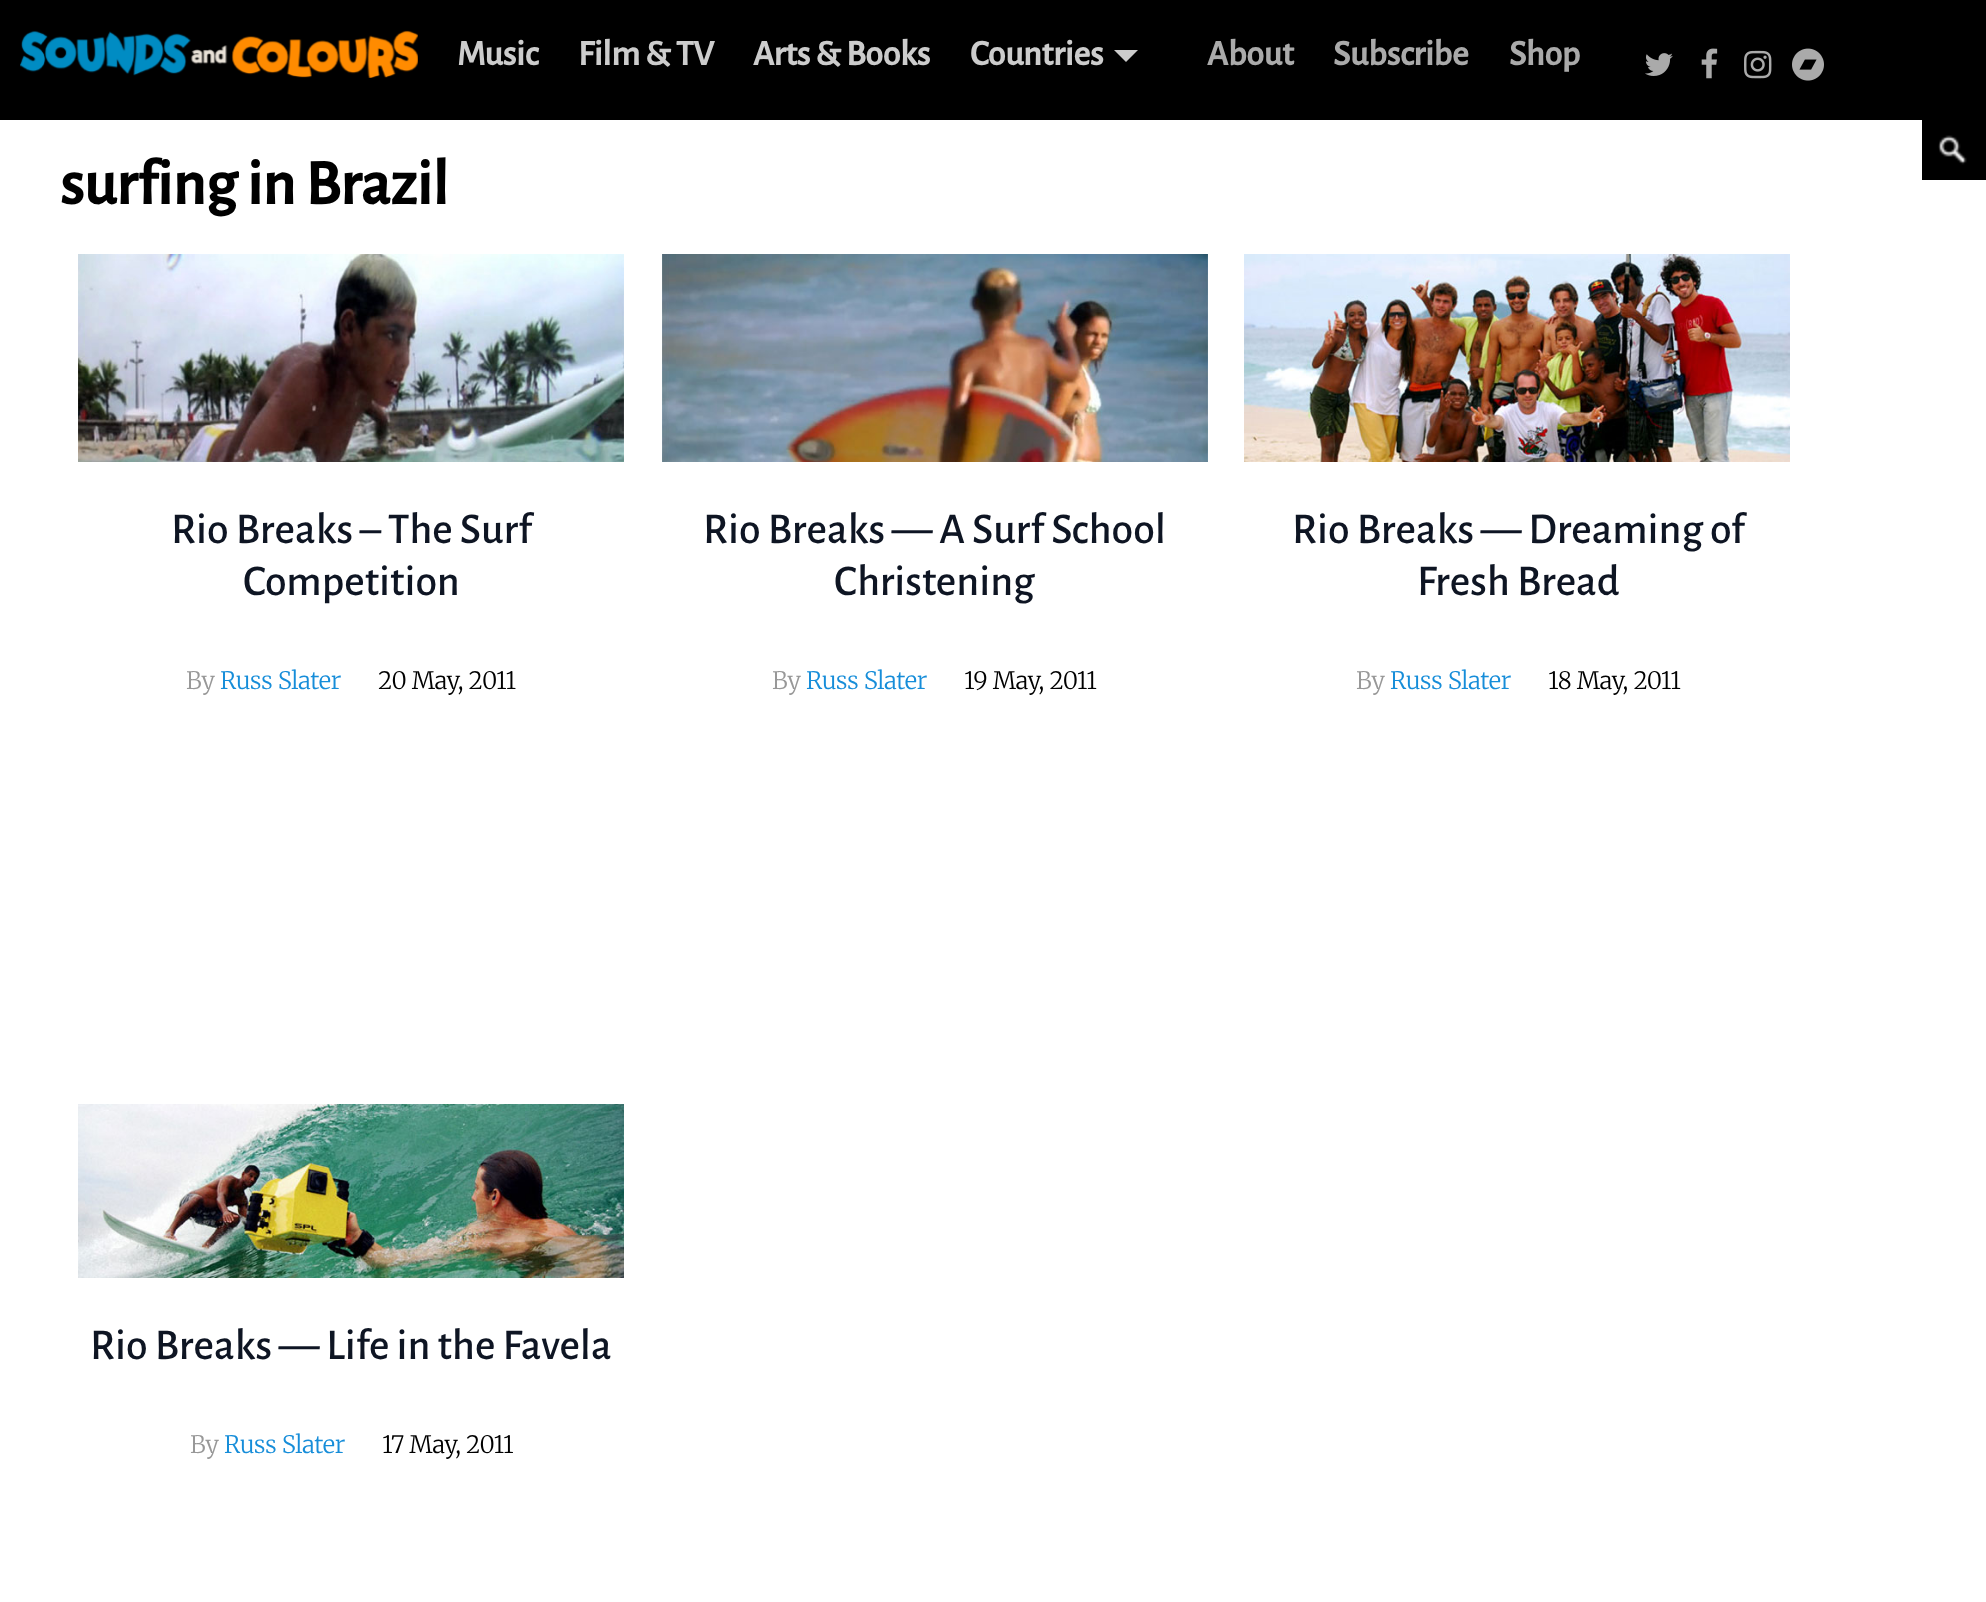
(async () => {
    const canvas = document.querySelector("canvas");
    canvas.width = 1986;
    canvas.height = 1602;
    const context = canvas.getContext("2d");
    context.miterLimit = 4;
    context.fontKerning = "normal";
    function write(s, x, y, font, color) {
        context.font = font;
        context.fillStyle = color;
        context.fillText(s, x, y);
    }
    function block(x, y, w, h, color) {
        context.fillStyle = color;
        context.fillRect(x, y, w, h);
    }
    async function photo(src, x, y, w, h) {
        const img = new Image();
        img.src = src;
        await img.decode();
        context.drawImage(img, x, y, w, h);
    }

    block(0, 0, 1986, 1602, "rgb(255, 255, 255)");
    block(0, 0, 1986, 120, "rgb(0, 0, 0)");
    await photo("media/1.png", 20, 30, 398, 48);
    context.letterSpacing = "-0.3px";
    write("Music", 457, 65, "bold 36px Alegreya Sans", "rgb(204, 204, 204)");
    write("Film & TV", 578, 65, "bold 36px Alegreya Sans", "rgb(204, 204, 204)");
    write("Arts & Books", 753, 65, "bold 36px Alegreya Sans", "rgb(204, 204, 204)");
    write("Countries", 970, 65, "bold 36px Alegreya Sans", "rgb(204, 204, 204)");
    context.beginPath();
    context.moveTo(1114, 50);
    context.lineTo(1138, 50);
    context.lineTo(1126, 62);
    context.closePath();
    context.fill();
    write("About", 1207, 65, "bold 36px Alegreya Sans", "rgb(170, 170, 170)");
    write("Subscribe", 1333, 65, "bold 36px Alegreya Sans", "rgb(170, 170, 170)");
    write("Shop", 1509, 65, "bold 36px Alegreya Sans", "rgb(170, 170, 170)");
    await photo("media/2.png", 1645, 53, 28, 23);
    await photo("media/3.png", 1701, 48, 17, 31);
    await photo("media/4.png", 1744, 50, 28, 29);
    await photo("media/5.png", 1792, 48, 32, 33);
    block(1922, 120, 64, 60, "rgb(0, 0, 0)");
    await photo("media/6.png", 1938, 135, 29, 30);
    write("surfing in Brazil", 60, 204, "bold 64px Alegreya Sans", "rgb(0, 0, 0)");
    await photo("media/7.png", 78, 254, 546, 208);
    context.letterSpacing = "0px";
    write("Rio Breaks – The Surf", 171, 543, "500 44px Alegreya Sans", "rgb(14, 21, 35)");
    write("Competition", 243, 595, "500 44px Alegreya Sans", "rgb(14, 21, 35)");
    context.letterSpacing = "-0.3px";
    write("By", 186, 689, "300 24px Merriweather", "rgb(152, 152, 152)");
    write("Russ Slater", 220, 689, "300 24px Merriweather", "rgb(22, 141, 217)");
    write("20 May, 2011", 378, 689, "300 24px Merriweather", "rgb(0, 0, 0)");
    await photo("media/8.png", 662, 254, 546, 208);
    context.letterSpacing = "0px";
    write("Rio Breaks — A Surf School", 703, 543, "500 44px Alegreya Sans", "rgb(14, 21, 35)");
    write("Christening", 834, 595, "500 44px Alegreya Sans", "rgb(14, 21, 35)");
    context.letterSpacing = "-0.3px";
    write("By", 772, 689, "300 24px Merriweather", "rgb(152, 152, 152)");
    write("Russ Slater", 806, 689, "300 24px Merriweather", "rgb(22, 141, 217)");
    write("19 May, 2011", 964, 689, "300 24px Merriweather", "rgb(0, 0, 0)");
    await photo("media/9.png", 1244, 254, 546, 208);
    context.letterSpacing = "0px";
    write("Rio Breaks — Dreaming of", 1292, 543, "500 44px Alegreya Sans", "rgb(14, 21, 35)");
    write("Fresh Bread", 1417, 595, "500 44px Alegreya Sans", "rgb(14, 21, 35)");
    context.letterSpacing = "-0.3px";
    write("By", 1356, 689, "300 24px Merriweather", "rgb(152, 152, 152)");
    write("Russ Slater", 1390, 689, "300 24px Merriweather", "rgb(22, 141, 217)");
    write("18 May, 2011", 1548, 689, "300 24px Merriweather", "rgb(0, 0, 0)");
    await photo("media/10.png", 78, 1104, 546, 174);
    context.letterSpacing = "0px";
    write("Rio Breaks — Life in the Favela", 90, 1359, "500 44px Alegreya Sans", "rgb(14, 21, 35)");
    context.letterSpacing = "-0.3px";
    write("By", 190, 1453, "300 24px Merriweather", "rgb(152, 152, 152)");
    write("Russ Slater", 224, 1453, "300 24px Merriweather", "rgb(22, 141, 217)");
    write("17 May, 2011", 382, 1453, "300 24px Merriweather", "rgb(0, 0, 0)");
})();
